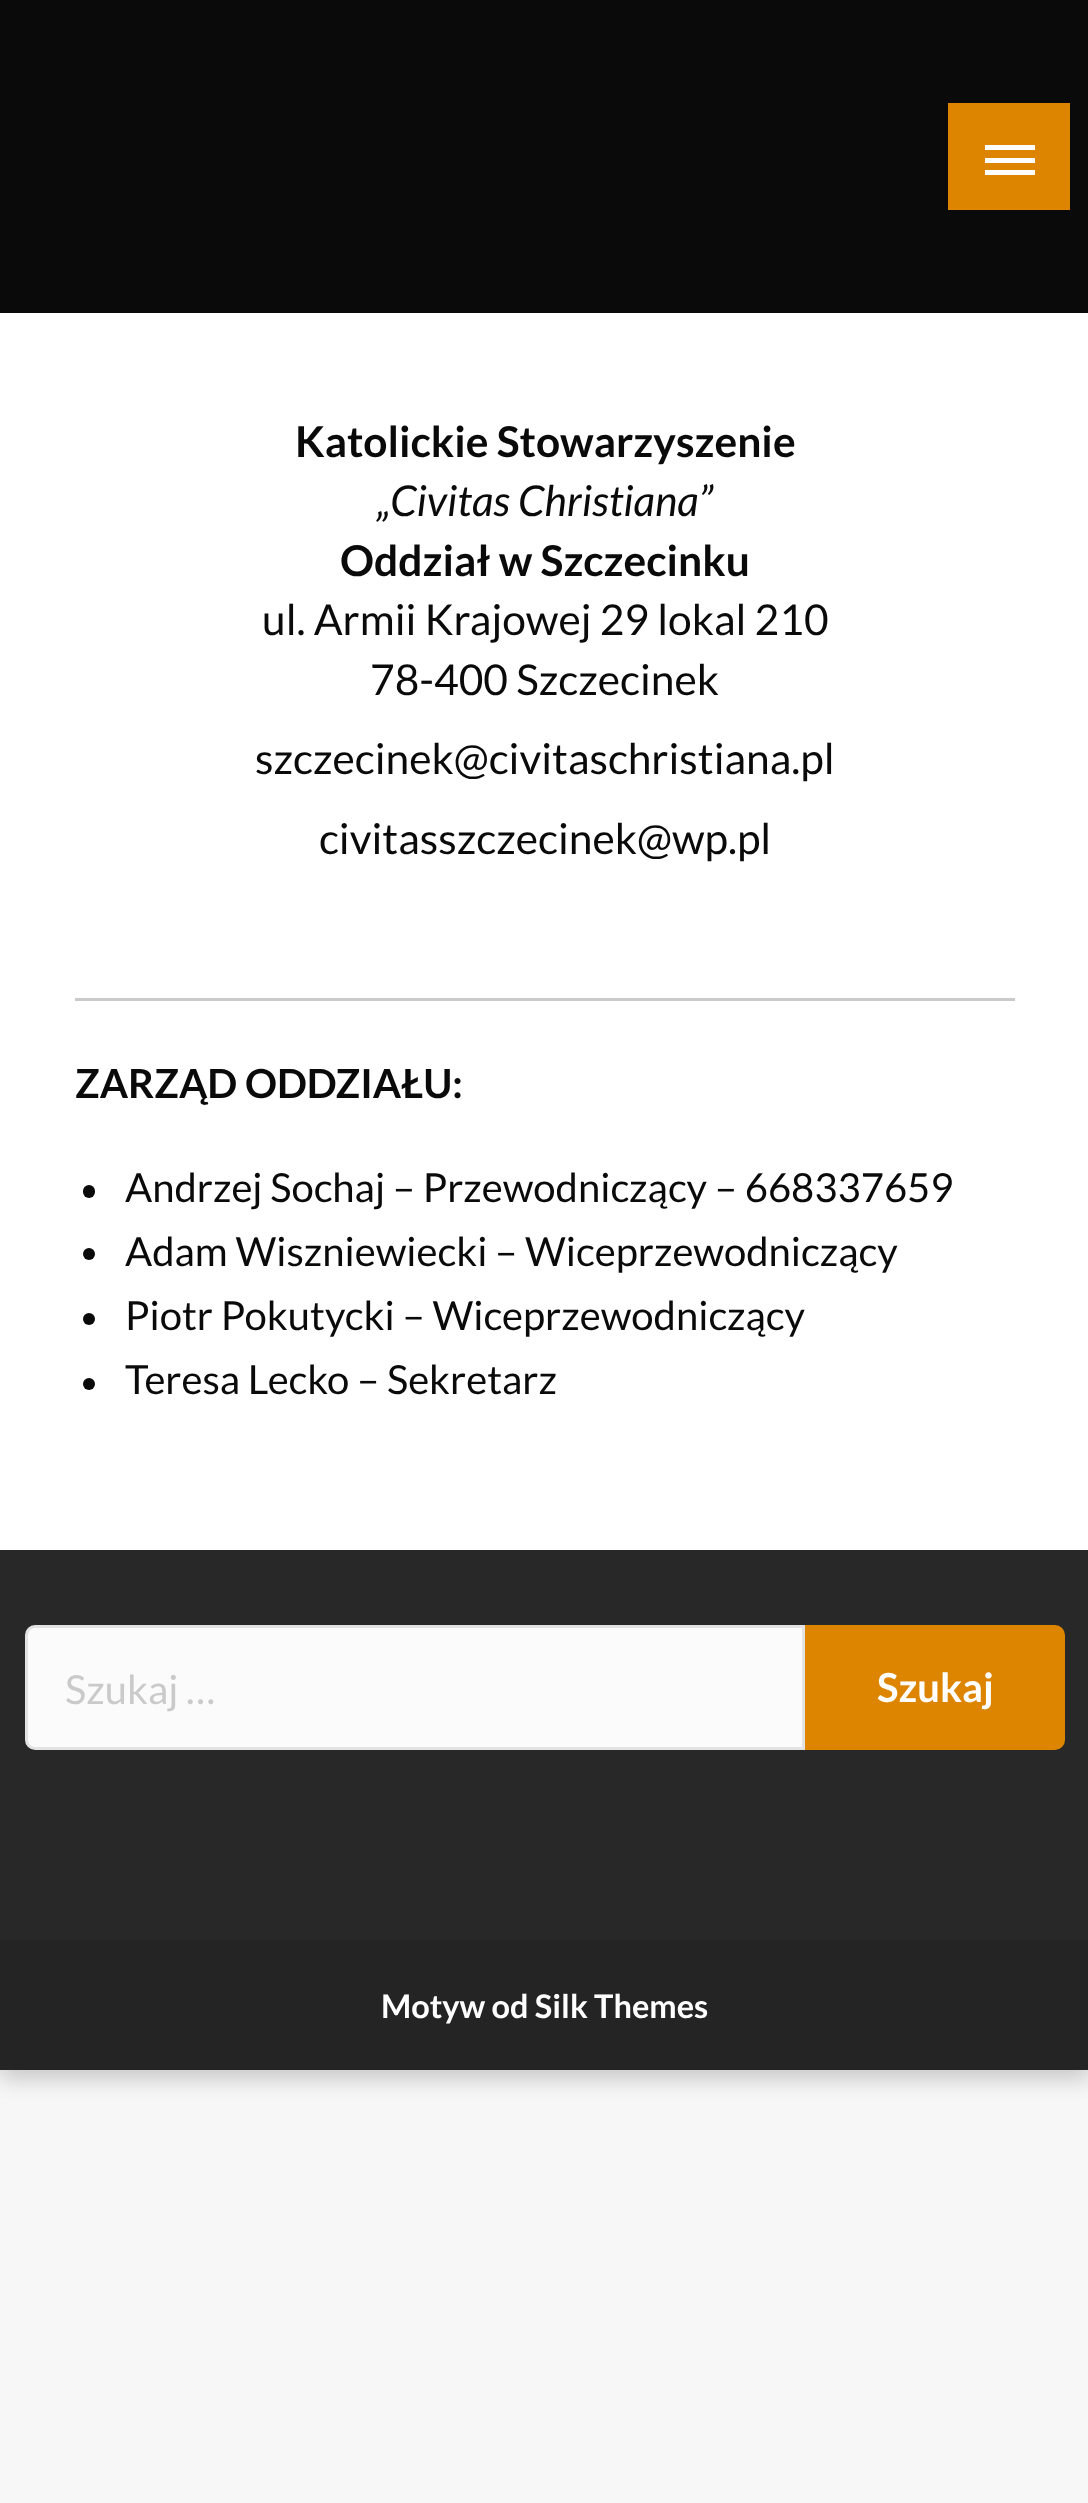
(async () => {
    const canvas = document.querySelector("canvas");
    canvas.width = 1088;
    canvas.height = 2503;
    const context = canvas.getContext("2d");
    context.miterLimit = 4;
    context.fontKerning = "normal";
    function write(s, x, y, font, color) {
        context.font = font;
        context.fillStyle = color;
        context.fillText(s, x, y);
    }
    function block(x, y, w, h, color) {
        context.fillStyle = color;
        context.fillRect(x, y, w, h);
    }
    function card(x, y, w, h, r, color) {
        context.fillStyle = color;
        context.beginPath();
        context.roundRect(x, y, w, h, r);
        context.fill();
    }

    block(0, 0, 1088, 2503, "rgb(247, 247, 247)");
    context.fillStyle = "rgba(0, 0, 0, 0.09)";
    context.filter = "blur(12.5px)";
    context.beginPath();
    context.rect(0, 8, 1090, 2070);
    context.fill();
    context.filter = "none";
    context.fillStyle = "rgba(0, 0, 0, 0.1)";
    context.filter = "blur(10px)";
    context.beginPath();
    context.rect(0, 10, 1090, 2070);
    context.fill();
    context.filter = "none";
    block(0, 0, 1088, 313, "rgb(10, 10, 10)");
    block(948, 103, 122, 107, "rgb(221, 133, 0)");
    block(985, 145, 50, 5, "rgb(255, 255, 255)");
    block(985, 158, 50, 5, "rgb(255, 255, 255)");
    block(985, 170, 50, 5, "rgb(255, 255, 255)");
    block(0, 313, 1088, 1237, "rgb(255, 255, 255)");
    write("Katolickie Stowarzyszenie", 295, 457, "bold 42.5px Lato", "rgb(10, 10, 10)");
    write("„Civitas Christiana”", 377, 516, "italic 42.5px Lato", "rgb(10, 10, 10)");
    write("Oddział w Szczecinku", 340, 576, "bold 42.5px Lato", "rgb(10, 10, 10)");
    write("ul. Armii Krajowej 29 lokal 210", 262, 635, "42.5px Lato", "rgb(10, 10, 10)");
    write("78-400 Szczecinek", 370, 695, "42.5px Lato", "rgb(10, 10, 10)");
    write("szczecinek@civitaschristiana.pl", 255, 774, "42.5px Lato", "rgb(10, 10, 10)");
    write("civitasszczecinek@wp.pl", 319, 854, "42.5px Lato", "rgb(10, 10, 10)");
    block(75, 998, 940, 3, "rgb(202, 202, 202)");
    write("ZARZĄD ODDZIAŁU:", 75, 1098, "bold 40px Lato", "rgb(10, 10, 10)");
    card(83, 1185, 12, 13, 6, "rgb(10, 10, 10)");
    write("Andrzej Sochaj – Przewodniczący – 668337659", 125, 1202, "40px Lato", "rgb(10, 10, 10)");
    context.beginPath();
    context.arc(89, 1254, 6, 0, Math.PI * 2);
    context.fill();
    write("Adam Wiszniewiecki – Wiceprzewodniczący", 125, 1266, "40px Lato", "rgb(10, 10, 10)");
    context.beginPath();
    context.arc(89, 1319, 6, 0, Math.PI * 2);
    context.fill();
    write("Piotr Pokutycki – Wiceprzewodniczący", 125, 1330, "40px Lato", "rgb(10, 10, 10)");
    context.beginPath();
    context.arc(89, 1384, 6, 0, Math.PI * 2);
    context.fill();
    write("Teresa Lecko – Sekretarz", 125, 1394, "40px Lato", "rgb(10, 10, 10)");
    block(0, 1550, 1088, 390, "rgb(40, 40, 40)");
    context.fillStyle = "rgb(251, 251, 251)";
    context.beginPath();
    context.roundRect(26.5, 1626.5, 777, 122, [8.5, 0, 0, 8.5]);
    context.fill();
    context.strokeStyle = "rgb(228, 227, 227)";
    context.lineWidth = 3;
    context.stroke();
    write("Szukaj …", 65, 1704, "40px Lato", "rgb(202, 202, 202)");
    context.fillStyle = "rgb(221, 133, 0)";
    context.beginPath();
    context.roundRect(805, 1625, 260, 125, [0, 10, 10, 0]);
    context.fill();
    write("Szukaj", 877, 1702, "bold 40px Lato", "rgb(255, 255, 255)");
    block(0, 1940, 1088, 130, "rgb(36, 36, 36)");
    write("Motyw od Silk Themes", 381, 2018, "bold 32.5px Lato", "rgb(255, 255, 255)");
})();
